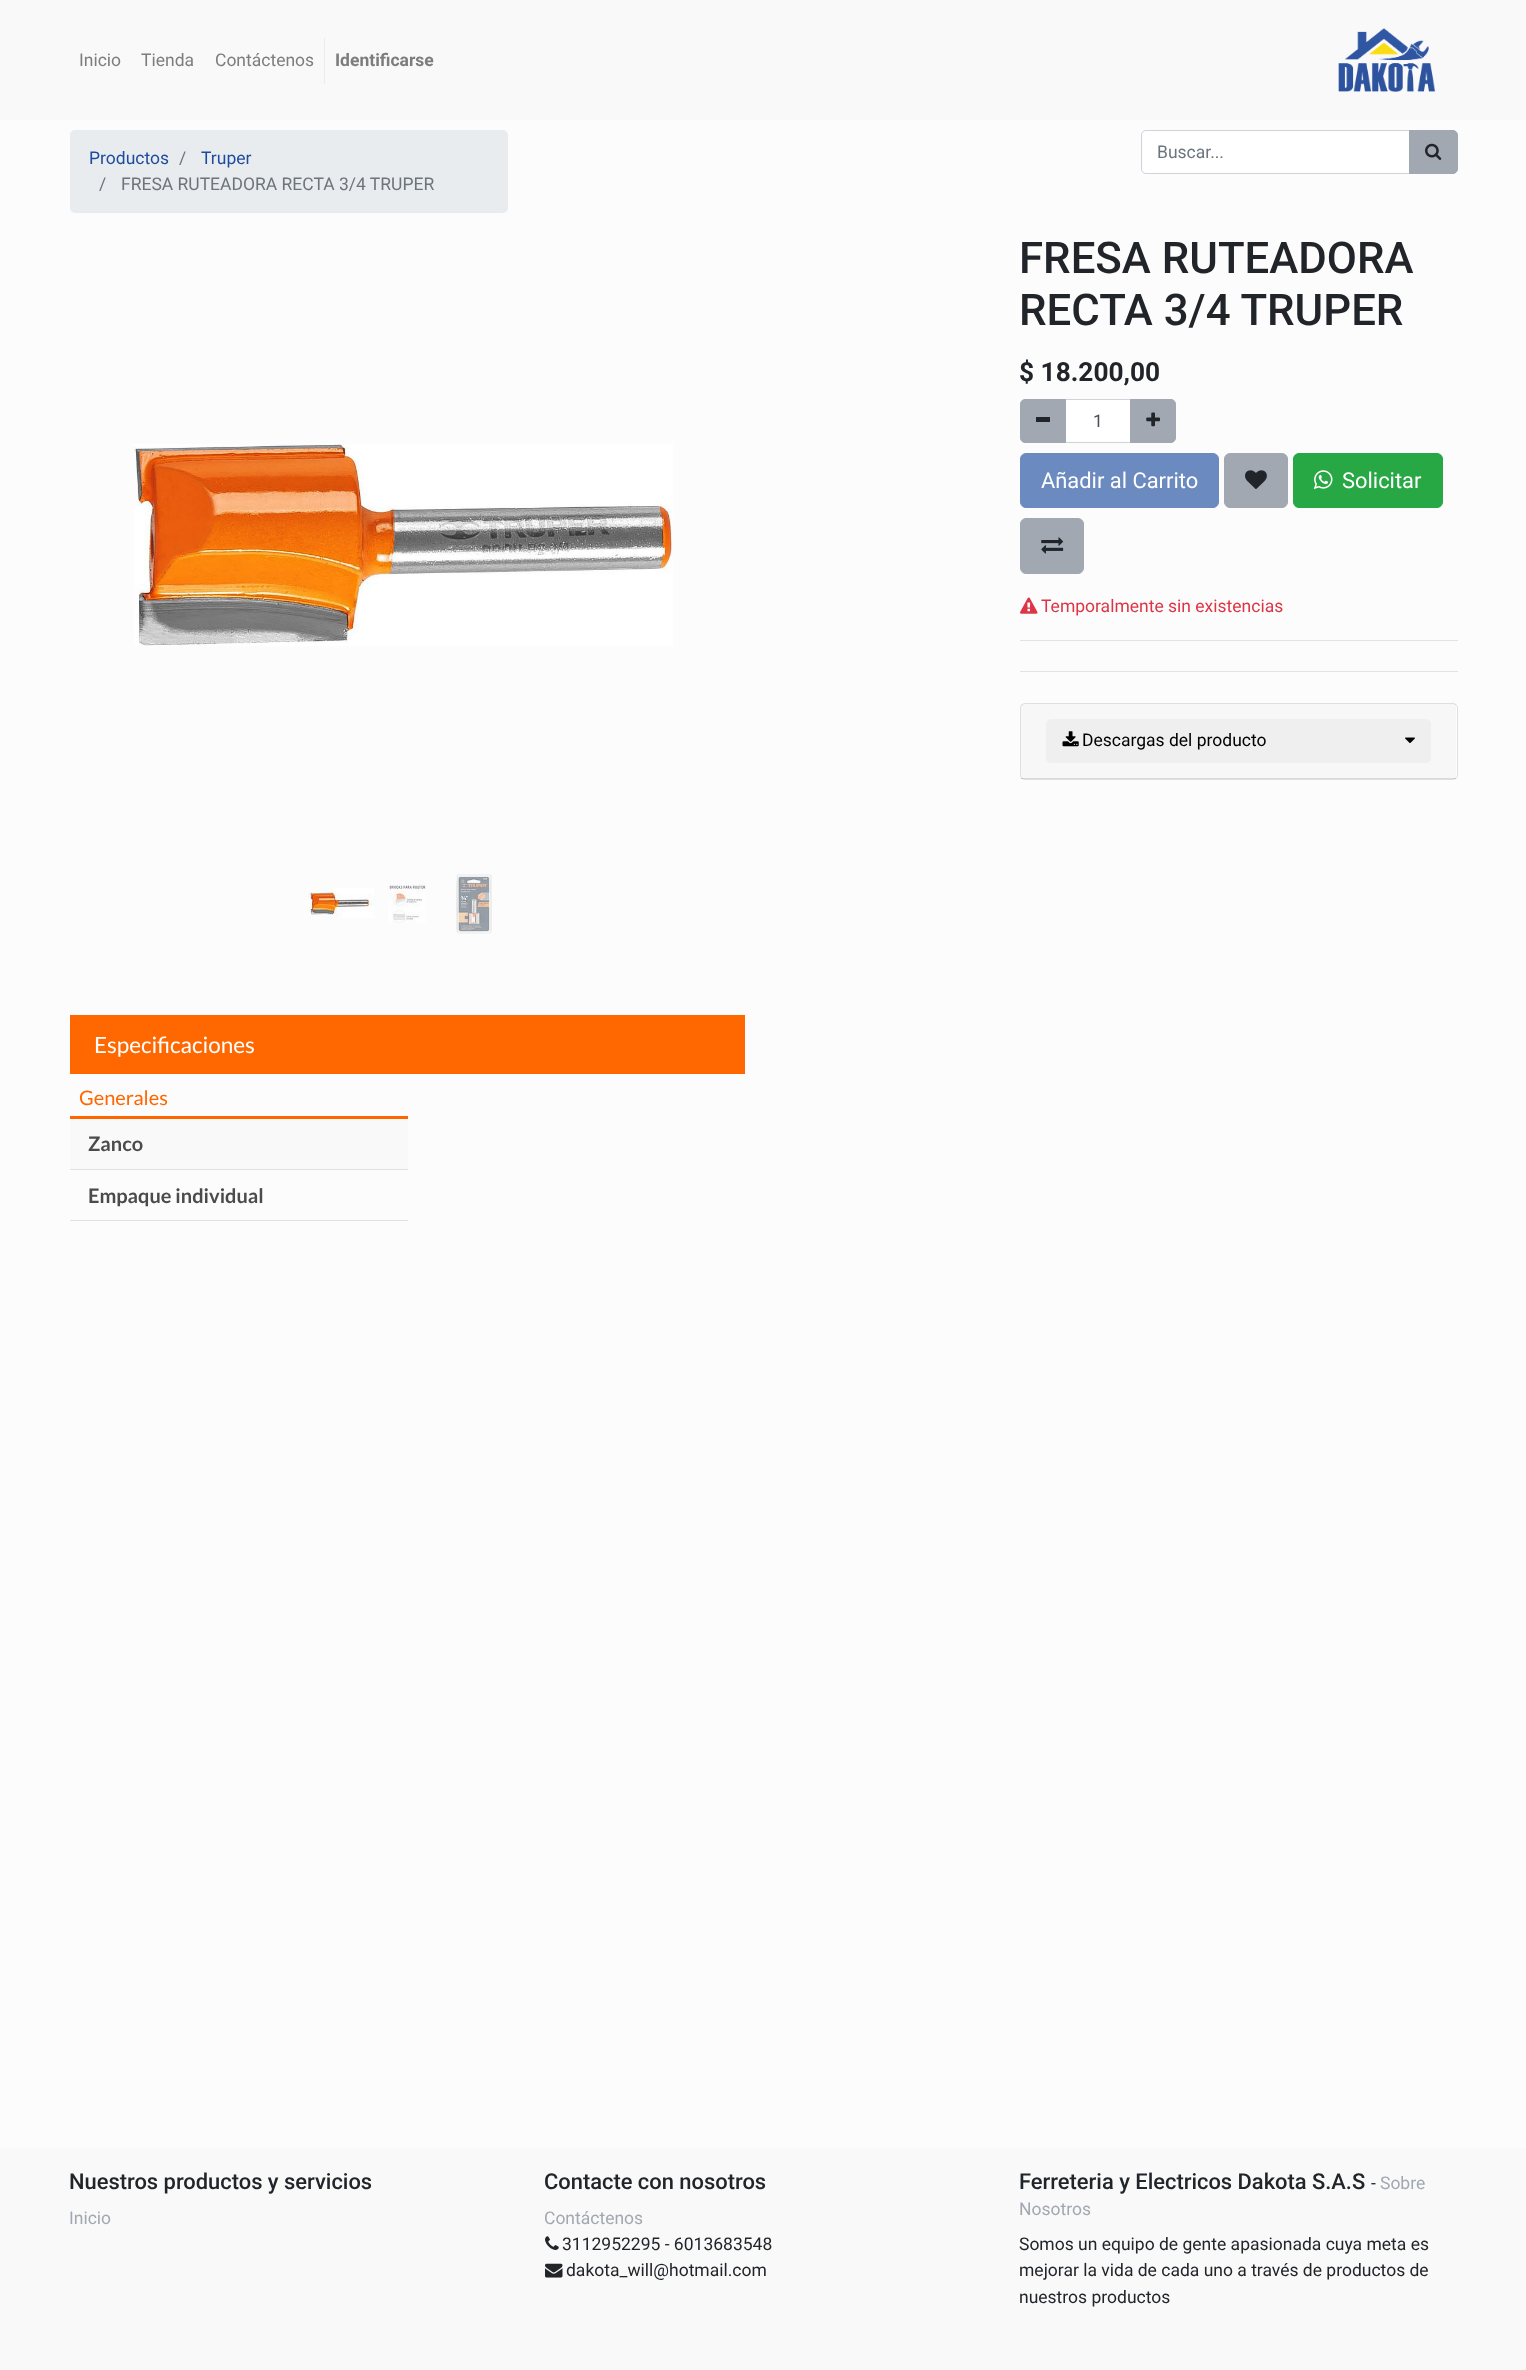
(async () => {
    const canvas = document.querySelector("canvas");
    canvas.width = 1526;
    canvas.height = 2370;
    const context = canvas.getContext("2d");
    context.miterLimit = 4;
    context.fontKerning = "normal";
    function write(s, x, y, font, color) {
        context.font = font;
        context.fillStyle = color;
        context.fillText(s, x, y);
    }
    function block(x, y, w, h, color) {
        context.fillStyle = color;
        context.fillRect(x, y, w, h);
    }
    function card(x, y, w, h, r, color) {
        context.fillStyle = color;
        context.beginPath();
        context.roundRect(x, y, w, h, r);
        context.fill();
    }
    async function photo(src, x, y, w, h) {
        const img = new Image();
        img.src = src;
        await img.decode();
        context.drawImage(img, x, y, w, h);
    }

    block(0, 0, 1526, 2370, "rgb(252, 252, 252)");
    block(0, 0, 1526, 120, "rgb(249, 249, 249)");
    write("Inicio", 79, 66, "17.5px Roboto", "rgb(125, 125, 125)");
    write("Tienda", 141, 66, "17.5px Roboto", "rgb(125, 125, 125)");
    write("Contáctenos", 215, 66, "17.5px Roboto", "rgb(125, 125, 125)");
    block(324, 38, 1, 46, "rgb(233, 236, 239)");
    write("Identificarse", 335, 66, "bold 17.5px Roboto", "rgb(125, 125, 125)");
    await photo("media/1.png", 1338, 28, 98, 64);
    card(70, 130, 438, 83, 5, "rgb(233, 236, 239)");
    write("Productos", 89, 164, "17.5px Roboto", "rgb(29, 76, 158)");
    write("/", 179, 164, "17.5px Roboto", "rgb(108, 117, 125)");
    write("Truper", 201, 164, "17.5px Roboto", "rgb(29, 76, 158)");
    write("/", 99, 190, "17.5px Roboto", "rgb(108, 117, 125)");
    write("FRESA RUTEADORA RECTA 3/4 TRUPER", 121, 190, "17.5px Roboto", "rgb(108, 117, 125)");
    context.fillStyle = "rgb(255, 255, 255)";
    context.beginPath();
    context.roundRect(1143, 131, 266, 42, [4, 0, 0, 4]);
    context.fill();
    context.beginPath();
    context.roundRect(1141.5, 130.5, 268, 43, [4.5, 0, 0, 4.5]);
    context.strokeStyle = "rgb(206, 212, 218)";
    context.stroke();
    write("Buscar...", 1157, 158, "17.5px Roboto", "rgb(108, 117, 125)");
    context.fillStyle = "rgb(162, 168, 178)";
    context.beginPath();
    context.roundRect(1409.5, 130.5, 48, 43, [0, 4.5, 4.5, 0]);
    context.fill();
    context.strokeStyle = "rgb(162, 168, 178)";
    context.stroke();
    await photo("media/2.png", 1425, 143, 17, 17);
    write("FRESA RUTEADORA", 1019, 273, "500 43.75px Roboto", "rgb(33, 37, 41)");
    write("RECTA 3/4 TRUPER", 1019, 325, "500 43.75px Roboto", "rgb(33, 37, 41)");
    write("$ 18.200,00", 1019, 381, "bold 26.25px Roboto", "rgb(33, 37, 41)");
    block(1066, 400, 64, 41, "rgb(255, 255, 255)");
    context.strokeStyle = "rgb(206, 212, 218)";
    context.strokeRect(1065.5, 399.5, 65, 43);
    context.fillStyle = "rgb(162, 168, 178)";
    context.beginPath();
    context.roundRect(1020.5, 399.5, 45, 43, [4.5, 0, 0, 4.5]);
    context.fill();
    context.strokeStyle = "rgb(162, 168, 178)";
    context.stroke();
    block(1036, 417, 14, 5, "rgb(33, 37, 41)");
    write("1", 1093, 427, "17.5px Roboto", "rgb(73, 80, 87)");
    context.fillStyle = "rgb(162, 168, 178)";
    context.beginPath();
    context.roundRect(1130.5, 399.5, 45, 43, [0, 4.5, 4.5, 0]);
    context.fill();
    context.stroke();
    await photo("media/3.png", 1146, 412, 14, 15);
    context.fillStyle = "rgb(107, 138, 191)";
    context.beginPath();
    context.roundRect(1020.5, 453.5, 198, 54, 5.5);
    context.fill();
    context.strokeStyle = "rgb(107, 138, 191)";
    context.stroke();
    write("Añadir al Carrito", 1041, 488, "21.9px Roboto", "rgb(255, 255, 255)");
    context.fillStyle = "rgb(162, 168, 178)";
    context.beginPath();
    context.roundRect(1224.5, 453.5, 63, 54, 5.5);
    context.fill();
    context.strokeStyle = "rgb(162, 168, 178)";
    context.stroke();
    await photo("media/4.png", 1245, 470, 22, 19);
    context.fillStyle = "rgb(40, 167, 69)";
    context.beginPath();
    context.roundRect(1293.5, 453.5, 149, 54, 5.5);
    context.fill();
    context.strokeStyle = "rgb(40, 167, 69)";
    context.stroke();
    await photo("media/5.png", 1313, 470, 20, 19);
    write("Solicitar", 1342, 488, "21.9px Roboto", "rgb(255, 255, 255)");
    context.fillStyle = "rgb(162, 168, 178)";
    context.beginPath();
    context.roundRect(1020.5, 518.5, 63, 55, 5.5);
    context.fill();
    context.strokeStyle = "rgb(162, 168, 178)";
    context.stroke();
    await photo("media/6.png", 1041, 537, 23, 17);
    await photo("media/7.png", 1020, 597, 18, 17);
    write("Temporalmente sin existencias", 1041, 612, "17.5px Roboto", "rgb(220, 53, 69)");
    block(1020, 640, 438, 1, "rgb(227, 227, 227)");
    block(1020, 671, 438, 1, "rgb(227, 227, 227)");
    context.fillStyle = "rgb(255, 255, 255)";
    context.beginPath();
    context.roundRect(1020.5, 703.5, 437, 76, 4.5);
    context.fill();
    context.strokeStyle = "rgb(223, 223, 223)";
    context.stroke();
    block(1021, 704, 435, 75, "rgba(0, 0, 0, 0.03)");
    block(1021, 778, 435, 1, "rgba(0, 0, 0, 0.12)");
    card(1046, 719, 385, 44, 5, "rgb(239, 239, 239)");
    await photo("media/8.png", 1062, 731, 17, 16);
    write("Descargas del producto", 1082, 746, "17.5px Roboto", "rgb(0, 0, 0)");
    await photo("media/9.png", 1405, 737, 10, 6);
    await photo("media/10.png", 134, 444, 539, 202);
    await photo("media/11.png", 306, 888, 68, 30);
    await photo("media/12.png", 388, 883, 38, 40);
    await photo("media/13.png", 456, 874, 36, 60);
    block(70, 1015, 675, 59, "rgb(255, 104, 0)");
    write("Especificaciones", 94, 1053, "22.5px Lato", "rgb(255, 255, 255)");
    block(70, 1116, 338, 3, "rgb(255, 102, 0)");
    write("Generales", 79, 1105, "20px Lato", "rgb(255, 102, 0)");
    block(70, 1119, 338, 50, "rgb(249, 249, 249)");
    block(70, 1169, 338, 1, "rgb(225, 225, 225)");
    write("Zanco", 88, 1151, "bold 20px Lato", "rgb(75, 75, 75)");
    block(70, 1220, 338, 1, "rgb(225, 225, 225)");
    write("Empaque individual", 88, 1203, "bold 20px Lato", "rgb(75, 75, 75)");
    block(0, 2148, 1526, 222, "rgb(249, 249, 249)");
    write("Nuestros productos y servicios", 69, 2189, "500 21.9px Roboto", "rgb(33, 37, 41)");
    write("Inicio", 69, 2224, "17.5px Roboto", "rgb(162, 168, 178)");
    write("Contacte con nosotros", 544, 2189, "500 21.9px Roboto", "rgb(33, 37, 41)");
    write("Contáctenos", 544, 2224, "17.5px Roboto", "rgb(162, 168, 178)");
    await photo("media/14.png", 545, 2236, 14, 14);
    write("3112952295 - 6013683548", 562, 2250, "17.5px Roboto", "rgb(33, 37, 41)");
    await photo("media/15.png", 545, 2263, 18, 15);
    write("dakota_will@hotmail.com", 566, 2276, "17.5px Roboto", "rgb(33, 37, 41)");
    write("Ferreteria y Electricos Dakota S.A.S", 1019, 2189, "500 21.9px Roboto", "rgb(33, 37, 41)");
    write("-", 1371, 2189, "17.5px Roboto", "rgb(33, 37, 41)");
    write("Sobre", 1380, 2189, "17.5px Roboto", "rgb(162, 168, 178)");
    write("Nosotros", 1019, 2215, "17.5px Roboto", "rgb(162, 168, 178)");
    write("Somos un equipo de gente apasionada cuya meta es", 1019, 2250, "17.5px Roboto", "rgb(33, 37, 41)");
    write("mejorar la vida de cada uno a través de productos de", 1019, 2276, "17.5px Roboto", "rgb(33, 37, 41)");
    write("nuestros productos", 1019, 2303, "17.5px Roboto", "rgb(33, 37, 41)");
})();
